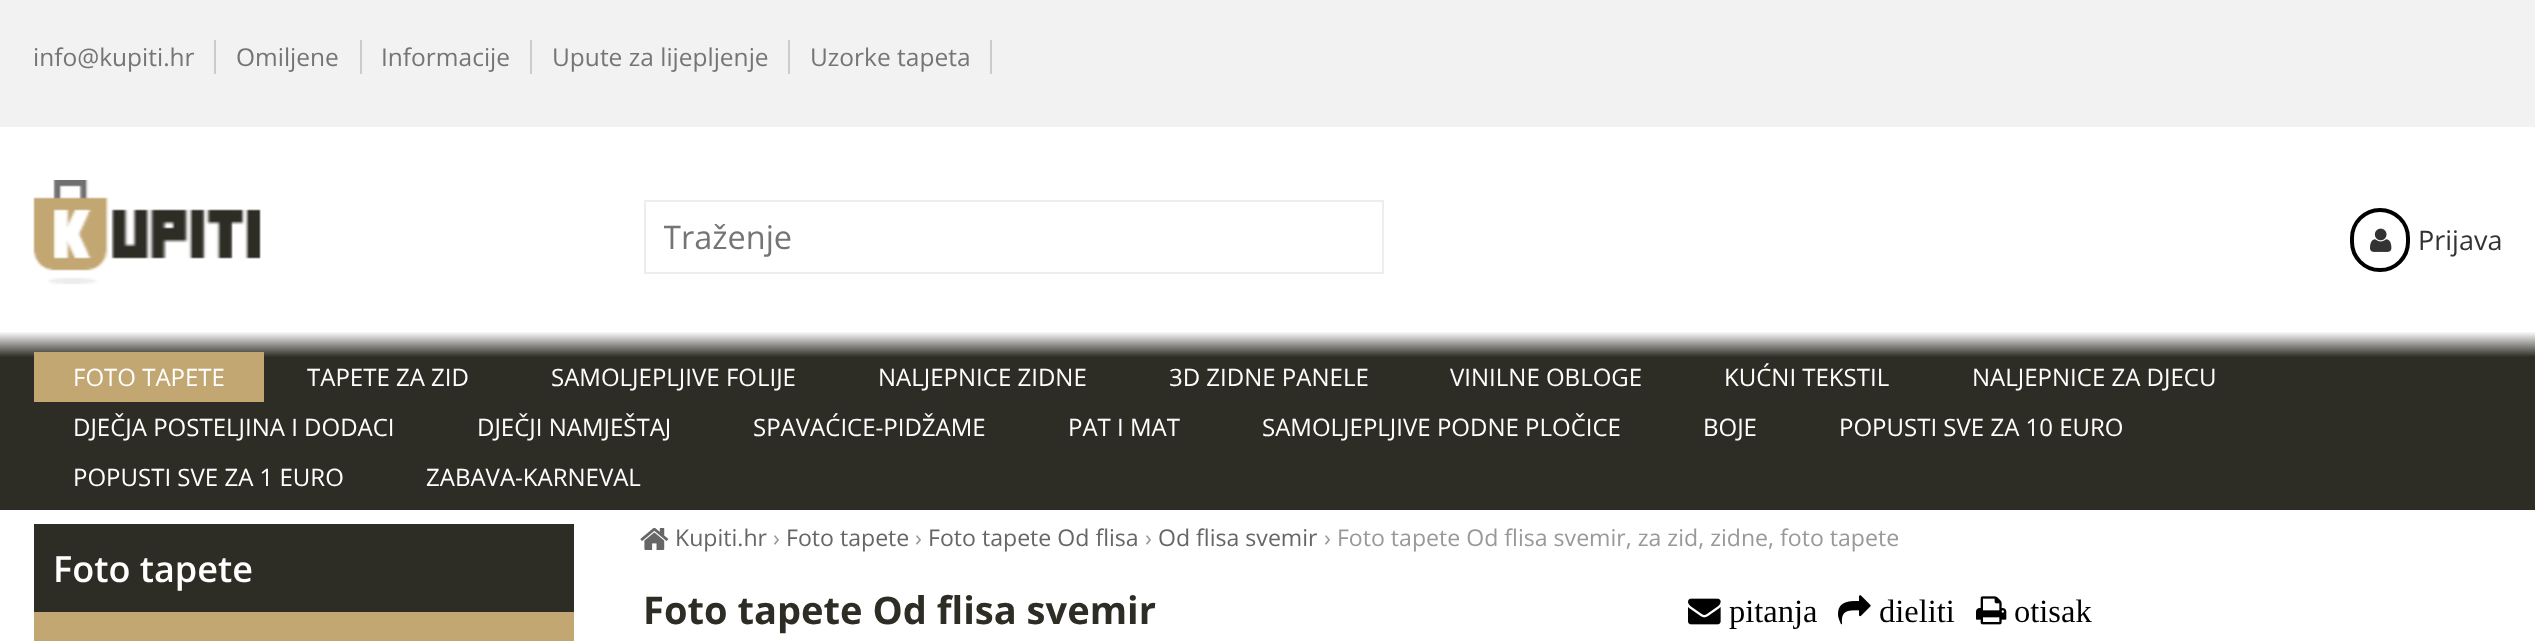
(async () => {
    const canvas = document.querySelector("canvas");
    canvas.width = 2535;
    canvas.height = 641;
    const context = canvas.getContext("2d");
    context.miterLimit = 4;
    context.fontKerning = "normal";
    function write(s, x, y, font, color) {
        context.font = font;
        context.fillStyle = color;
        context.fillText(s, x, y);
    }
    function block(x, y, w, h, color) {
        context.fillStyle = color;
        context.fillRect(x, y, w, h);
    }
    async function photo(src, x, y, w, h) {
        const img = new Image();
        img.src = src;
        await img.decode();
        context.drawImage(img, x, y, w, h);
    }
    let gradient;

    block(0, 0, 2535, 641, "rgb(255, 255, 255)");
    gradient = context.createLinearGradient(1268, 0, 1268, 510);
    gradient.addColorStop(0, "rgb(242, 242, 242)");
    gradient.addColorStop(0.25, "rgb(242, 242, 242)");
    gradient.addColorStop(0.25, "rgb(255, 255, 255)");
    gradient.addColorStop(0.65, "rgb(255, 255, 255)");
    gradient.addColorStop(0.7, "rgb(46, 45, 37)");
    gradient.addColorStop(1, "rgb(46, 45, 37)");
    context.fillStyle = gradient;
    context.fillRect(0, 0, 2535, 510);
    write("info@kupiti.hr", 33, 66, "24.5px Open Sans", "rgb(117, 117, 117)");
    block(214, 40, 2, 34, "rgb(204, 204, 204)");
    write("Omiljene", 236, 66, "24.5px Open Sans", "rgb(117, 117, 117)");
    block(360, 40, 2, 34, "rgb(204, 204, 204)");
    write("Informacije", 381, 66, "24.5px Open Sans", "rgb(117, 117, 117)");
    block(530, 40, 2, 34, "rgb(204, 204, 204)");
    write("Upute za lijepljenje", 552, 66, "24.5px Open Sans", "rgb(117, 117, 117)");
    block(788, 40, 2, 34, "rgb(204, 204, 204)");
    write("Uzorke tapeta", 810, 66, "24.5px Open Sans", "rgb(117, 117, 117)");
    block(990, 40, 2, 34, "rgb(204, 204, 204)");
    await photo("media/1.png", 33, 180, 228, 105);
    context.strokeStyle = "rgb(237, 237, 237)";
    context.lineWidth = 2;
    context.strokeRect(645, 201, 738, 72);
    context.save();
    context.beginPath();
    context.rect(664, 216, 700, 44);
    context.clip();
    write("Traženje", 663, 249, "32.5px Open Sans", "rgb(117, 117, 117)");
    context.restore();
    context.beginPath();
    context.roundRect(2352, 210, 56, 60, 28);
    context.strokeStyle = "rgb(0, 0, 0)";
    context.lineWidth = 4;
    context.stroke();
    await photo("media/2.png", 2370, 228, 22, 24);
    write("Prijava", 2418, 250, "27px Open Sans", "rgb(51, 51, 51)");
    block(34, 352, 230, 50, "rgb(194, 167, 115)");
    write("FOTO TAPETE", 73, 386, "24px Open Sans", "rgb(255, 255, 255)");
    write("TAPETE ZA ZID", 307, 386, "24px Open Sans", "rgb(255, 255, 255)");
    write("SAMOLJEPLJIVE FOLIJE", 551, 386, "24px Open Sans", "rgb(255, 255, 255)");
    write("NALJEPNICE ZIDNE", 878, 386, "24px Open Sans", "rgb(255, 255, 255)");
    write("3D ZIDNE PANELE", 1169, 386, "24px Open Sans", "rgb(255, 255, 255)");
    write("VINILNE OBLOGE", 1450, 386, "24px Open Sans", "rgb(255, 255, 255)");
    write("KUĆNI TEKSTIL", 1724, 386, "24px Open Sans", "rgb(255, 255, 255)");
    write("NALJEPNICE ZA DJECU", 1972, 386, "24px Open Sans", "rgb(255, 255, 255)");
    write("DJEČJA POSTELJINA I DODACI", 73, 436, "24px Open Sans", "rgb(255, 255, 255)");
    write("DJEČJI NAMJEŠTAJ", 477, 436, "24px Open Sans", "rgb(255, 255, 255)");
    write("SPAVAĆICE-PIDŽAME", 753, 436, "24px Open Sans", "rgb(255, 255, 255)");
    write("PAT I MAT", 1068, 436, "24px Open Sans", "rgb(255, 255, 255)");
    write("SAMOLJEPLJIVE PODNE PLOČICE", 1262, 436, "24px Open Sans", "rgb(255, 255, 255)");
    write("BOJE", 1703, 436, "24px Open Sans", "rgb(255, 255, 255)");
    write("POPUSTI SVE ZA 10 EURO", 1839, 436, "24px Open Sans", "rgb(255, 255, 255)");
    write("POPUSTI SVE ZA 1 EURO", 73, 486, "24px Open Sans", "rgb(255, 255, 255)");
    write("ZABAVA-KARNEVAL", 426, 486, "24px Open Sans", "rgb(255, 255, 255)");
    await photo("media/3.png", 640, 527, 29, 23);
    write("Kupiti.hr", 675, 546, "23.1px Open Sans", "rgb(102, 102, 102)");
    write("›", 773, 546, "23.1px Open Sans", "rgb(153, 153, 153)");
    write("Foto tapete", 786, 546, "23.1px Open Sans", "rgb(102, 102, 102)");
    write("›", 915, 546, "23.1px Open Sans", "rgb(153, 153, 153)");
    write("Foto tapete Od flisa", 928, 546, "23.1px Open Sans", "rgb(102, 102, 102)");
    write("›", 1145, 546, "23.1px Open Sans", "rgb(153, 153, 153)");
    write("Od flisa svemir", 1158, 546, "23.1px Open Sans", "rgb(102, 102, 102)");
    write("› Foto tapete Od flisa svemir, za zid, zidne, foto tapete", 1324, 546, "23.1px Open Sans", "rgb(153, 153, 153)");
    block(34, 524, 540, 88, "rgb(46, 45, 37)");
    write("Foto tapete", 53, 582, "600 36px Open Sans", "rgb(255, 255, 255)");
    block(34, 612, 540, 29, "rgb(194, 167, 115)");
    write("Foto tapete Od flisa svemir", 643, 624, "bold 38.1px Open Sans", "rgb(46, 45, 37)");
    await photo("media/4.png", 1688, 598, 33, 27);
    write("pitanja", 1729, 622, "32.5px Liberation Serif", "rgb(0, 0, 0)");
    await photo("media/5.png", 1838, 595, 33, 30);
    write("dieliti", 1879, 622, "32.5px Liberation Serif", "rgb(0, 0, 0)");
    await photo("media/6.png", 1976, 596, 31, 29);
    write("otisak", 2014, 622, "32.5px Liberation Serif", "rgb(0, 0, 0)");
})();
